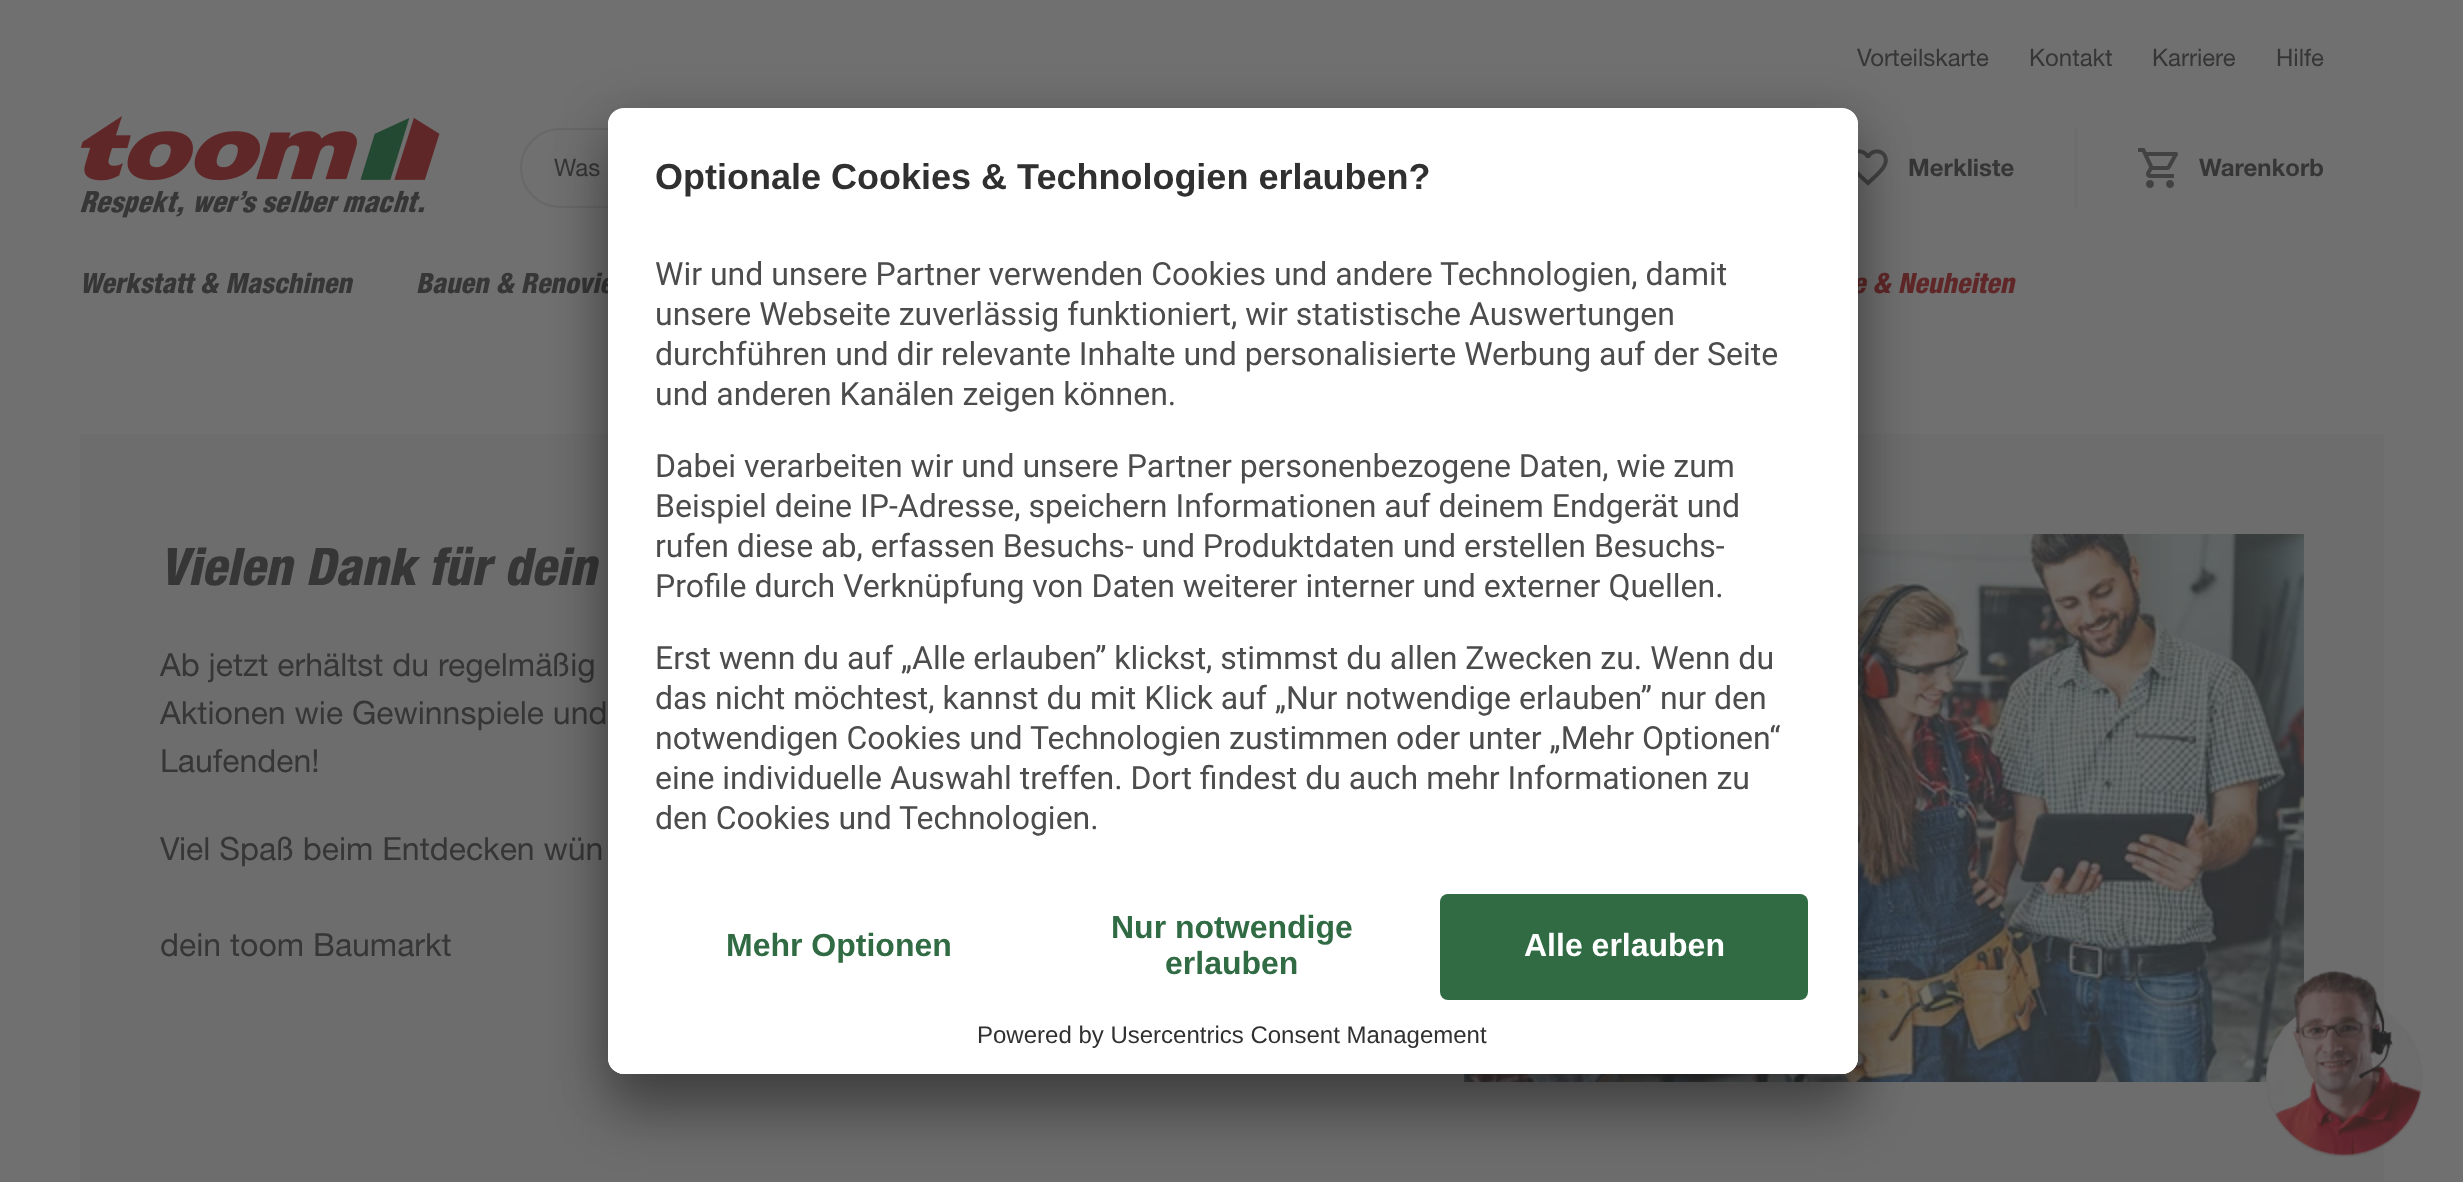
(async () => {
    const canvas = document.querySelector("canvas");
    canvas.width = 2463;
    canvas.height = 1182;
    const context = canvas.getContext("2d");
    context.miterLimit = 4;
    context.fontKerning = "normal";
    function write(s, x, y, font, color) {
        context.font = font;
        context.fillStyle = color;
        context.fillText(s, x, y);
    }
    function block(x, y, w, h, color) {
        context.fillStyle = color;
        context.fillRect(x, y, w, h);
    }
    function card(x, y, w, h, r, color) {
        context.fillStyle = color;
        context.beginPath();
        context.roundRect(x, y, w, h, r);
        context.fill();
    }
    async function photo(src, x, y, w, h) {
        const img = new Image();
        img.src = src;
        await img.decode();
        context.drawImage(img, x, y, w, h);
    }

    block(0, 0, 2463, 1182, "rgb(112, 112, 112)");
    write("Vorteilskarte", 1857, 66, "24px 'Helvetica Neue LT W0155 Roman'", "rgb(54, 54, 54)");
    write("Kontakt", 2029, 66, "24px 'Helvetica Neue LT W0155 Roman'", "rgb(54, 54, 54)");
    write("Karriere", 2152, 66, "24px 'Helvetica Neue LT W0155 Roman'", "rgb(54, 54, 54)");
    write("Hilfe", 2276, 66, "24px 'Helvetica Neue LT W0155 Roman'", "rgb(54, 54, 54)");
    await photo("media/1.png", 80, 116, 360, 102);
    context.beginPath();
    context.roundRect(521, 129, 930, 78, 39);
    context.strokeStyle = "rgb(104, 104, 104)";
    context.lineWidth = 2;
    context.stroke();
    write("Was", 554, 176, "24px 'Helvetica Neue LT W0155 Roman'", "rgb(54, 54, 54)");
    block(2074, 128, 4, 80, "rgb(109, 109, 109)");
    await photo("media/2.png", 1858, 149, 30, 37);
    write("Merkliste", 1908, 176, "bold 24px 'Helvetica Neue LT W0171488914'", "rgb(54, 54, 54)");
    await photo("media/3.png", 2138, 148, 40, 40);
    write("Warenkorb", 2199, 176, "bold 24px 'Helvetica Neue LT W0171488914'", "rgb(54, 54, 54)");
    write("Werkstatt & Maschinen", 80, 293, "bold 28px 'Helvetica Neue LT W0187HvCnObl'", "rgb(54, 54, 54)");
    write("Bauen & Renovie", 416, 293, "bold 28px 'Helvetica Neue LT W0187HvCnObl'", "rgb(54, 54, 54)");
    write("e & Neuheiten", 1852, 293, "bold 28px 'Helvetica Neue LT W0187HvCnObl'", "rgb(96, 39, 40)");
    block(80, 434, 2304, 748, "rgb(109, 109, 109)");
    write("Vielen Dank für dein", 160, 585, "bold 52px 'Helvetica Neue LT W0187HvCnObl'", "rgb(54, 54, 54)");
    write("Ab jetzt erhältst du regelmäßig", 160, 676, "32px 'Helvetica Neue LT W0155 Roman'", "rgb(54, 54, 54)");
    write("Aktionen wie Gewinnspiele und", 160, 724, "32px 'Helvetica Neue LT W0155 Roman'", "rgb(54, 54, 54)");
    write("Laufenden!", 160, 772, "32px 'Helvetica Neue LT W0155 Roman'", "rgb(54, 54, 54)");
    write("Viel Spaß beim Entdecken wün", 160, 860, "32px 'Helvetica Neue LT W0155 Roman'", "rgb(54, 54, 54)");
    write("dein toom Baumarkt", 160, 956, "32px 'Helvetica Neue LT W0155 Roman'", "rgb(54, 54, 54)");
    await photo("media/4.png", 1464, 534, 840, 548);
    context.fillStyle = "rgba(0, 0, 0, 0.3)";
    context.filter = "blur(28px)";
    context.beginPath();
    context.roundRect(608, 148, 1250, 966, 16);
    context.fill();
    context.filter = "none";
    context.fillStyle = "rgba(0, 0, 0, 0.22)";
    context.filter = "blur(26px)";
    context.beginPath();
    context.roundRect(608, 118, 1250, 966, 16);
    context.fill();
    context.filter = "none";
    card(608, 108, 1250, 966, 16, "rgb(255, 255, 255)");
    context.save();
    context.beginPath();
    context.roundRect(608, 108, 1250, 966, 16);
    context.clip();
    context.beginPath();
    context.roundRect(608, 108, 1250, 770, [16, 16, 0, 0]);
    context.clip();
    block(608, 110, 1250, 768, "rgb(255, 255, 255)");
    context.restore();
    write("Optionale Cookies & Technologien erlauben?", 655, 189, "bold 36px Liberation Sans", "rgb(48, 48, 48)");
    write("Wir und unsere Partner verwenden Cookies und andere Technologien, damit", 655, 285, "32px Roboto", "rgb(76, 76, 76)");
    write("unsere Webseite zuverlässig funktioniert, wir statistische Auswertungen", 655, 325, "32px Roboto", "rgb(76, 76, 76)");
    write("durchführen und dir relevante Inhalte und personalisierte Werbung auf der Seite", 655, 365, "32px Roboto", "rgb(76, 76, 76)");
    write("und anderen Kanälen zeigen können.", 655, 405, "32px Roboto", "rgb(76, 76, 76)");
    write("Dabei verarbeiten wir und unsere Partner personenbezogene Daten, wie zum", 655, 477, "32px Roboto", "rgb(76, 76, 76)");
    write("Beispiel deine IP-Adresse, speichern Informationen auf deinem Endgerät und", 655, 517, "32px Roboto", "rgb(76, 76, 76)");
    write("rufen diese ab, erfassen Besuchs- und Produktdaten und erstellen Besuchs-", 655, 557, "32px Roboto", "rgb(76, 76, 76)");
    write("Profile durch Verknüpfung von Daten weiterer interner und externer Quellen.", 655, 597, "32px Roboto", "rgb(76, 76, 76)");
    write("Erst wenn du auf „Alle erlauben” klickst, stimmst du allen Zwecken zu. Wenn du", 655, 669, "32px Roboto", "rgb(76, 76, 76)");
    write("das nicht möchtest, kannst du mit Klick auf „Nur notwendige erlauben” nur den", 655, 709, "32px Roboto", "rgb(76, 76, 76)");
    write("notwendigen Cookies und Technologien zustimmen oder unter „Mehr Optionen“", 655, 749, "32px Roboto", "rgb(76, 76, 76)");
    write("eine individuelle Auswahl treffen. Dort findest du auch mehr Informationen zu", 655, 789, "32px Roboto", "rgb(76, 76, 76)");
    write("den Cookies und Technologien.", 655, 829, "32px Roboto", "rgb(76, 76, 76)");
    context.fillStyle = "rgb(255, 255, 255)";
    context.beginPath();
    context.roundRect(608, 878, 1250, 196, [0, 0, 16, 16]);
    context.fill();
    write("Mehr Optionen", 726, 956, "bold 32px Liberation Sans", "rgb(48, 107, 68)");
    write("Nur notwendige", 1111, 938, "bold 32px Liberation Sans", "rgb(48, 107, 68)");
    write("erlauben", 1165, 974, "bold 32px Liberation Sans", "rgb(48, 107, 68)");
    card(1440, 894, 368, 106, 8, "rgb(48, 107, 68)");
    write("Alle erlauben", 1524, 956, "bold 32px Liberation Sans", "rgb(255, 255, 255)");
    write("Powered by Usercentrics Consent Management", 977, 1043, "24px Liberation Sans", "rgb(48, 48, 48)");
    await photo("media/5.png", 2265, 970, 158, 187);
})();
